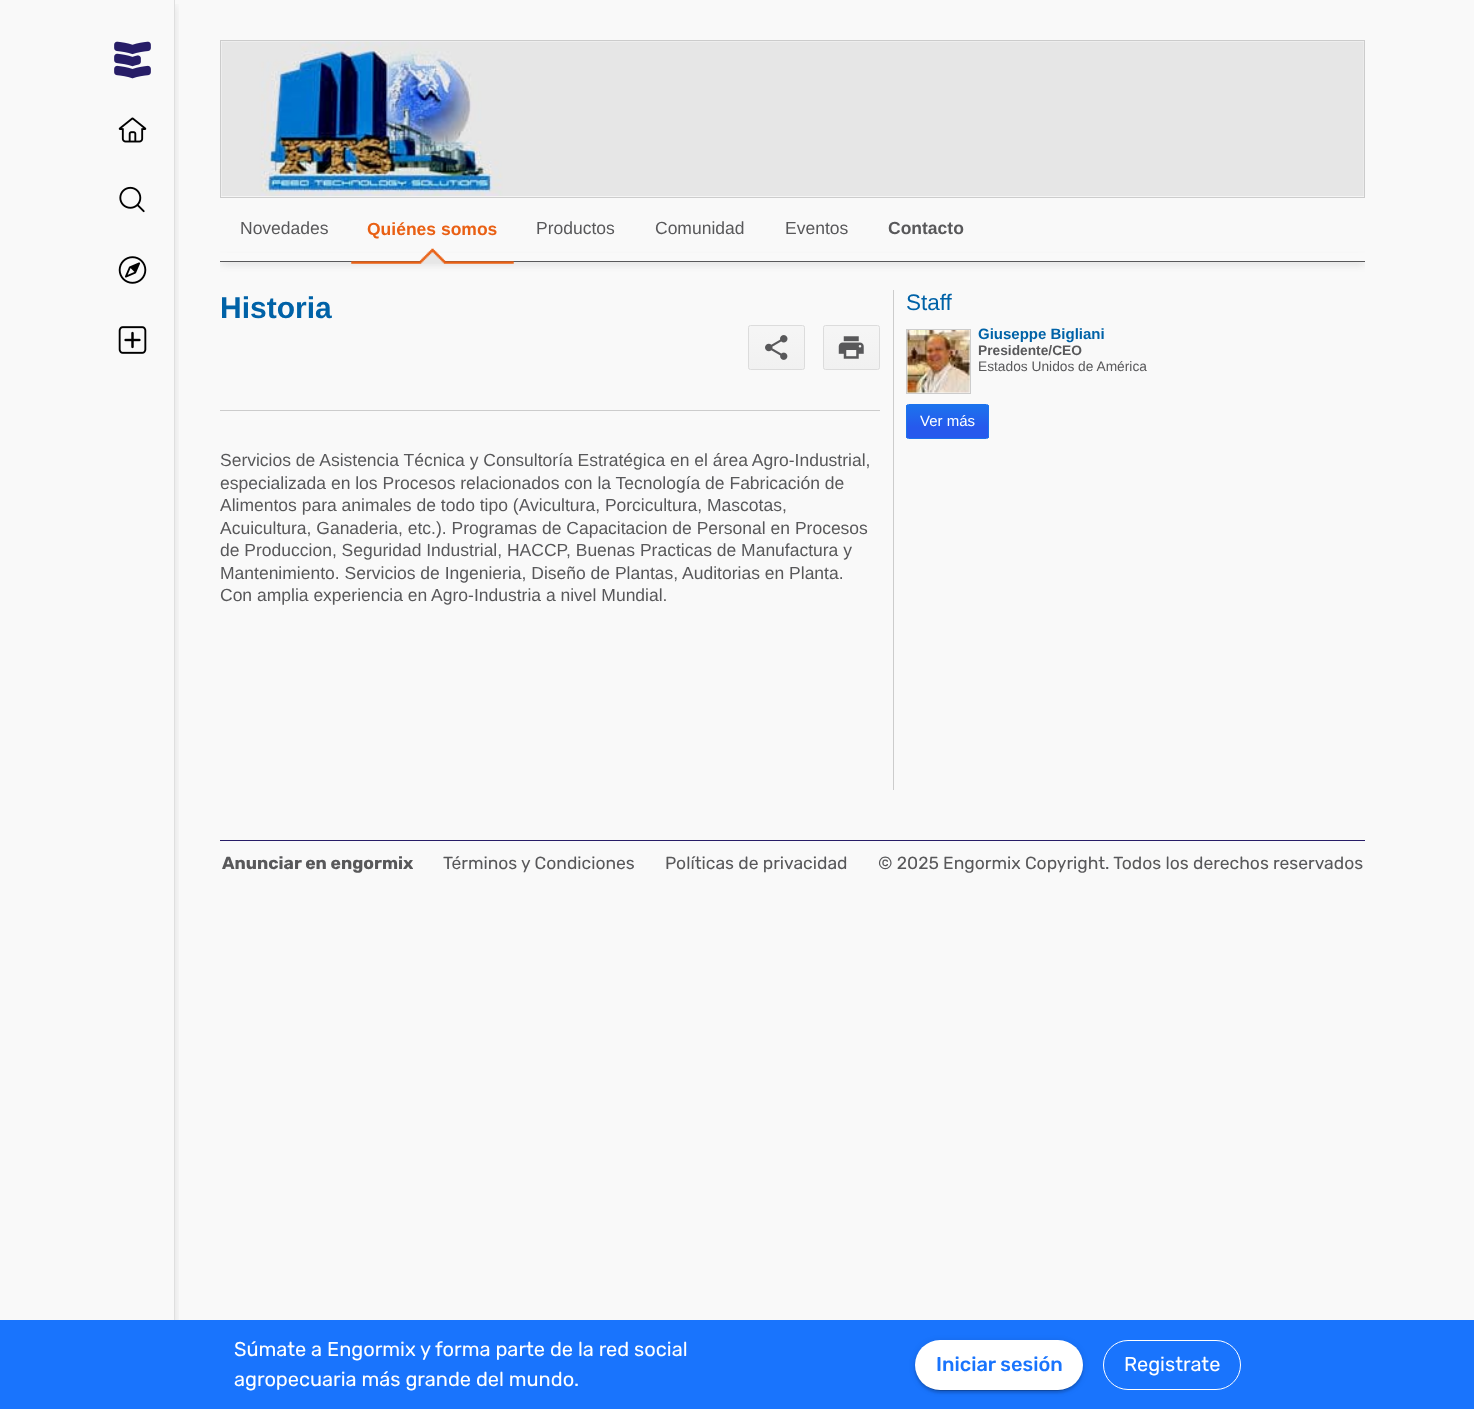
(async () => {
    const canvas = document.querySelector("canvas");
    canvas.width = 1474;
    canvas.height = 1409;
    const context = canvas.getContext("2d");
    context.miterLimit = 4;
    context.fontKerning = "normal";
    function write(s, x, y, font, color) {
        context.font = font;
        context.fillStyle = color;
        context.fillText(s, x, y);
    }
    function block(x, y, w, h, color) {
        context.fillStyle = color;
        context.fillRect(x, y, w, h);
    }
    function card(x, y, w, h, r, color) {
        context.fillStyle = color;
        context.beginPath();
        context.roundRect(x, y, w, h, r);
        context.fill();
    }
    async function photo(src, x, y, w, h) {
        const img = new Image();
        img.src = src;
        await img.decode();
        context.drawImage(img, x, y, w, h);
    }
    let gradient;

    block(0, 0, 1474, 1409, "rgb(249, 249, 249)");
    context.strokeStyle = "rgb(204, 204, 204)";
    context.strokeRect(220.5, 40.5, 1144, 157);
    await photo("media/1.png", 221, 41, 1143, 156);
    context.save();
    context.beginPath();
    context.rect(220, 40, 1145, 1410);
    context.clip();
    context.fillStyle = "rgb(88, 88, 90)";
    context.filter = "blur(4.5px)";
    context.beginPath();
    context.rect(220, 261, 1145, 1);
    context.fill();
    context.filter = "none";
    context.restore();
    block(220, 253, 1145, 8, "rgb(249, 249, 249)");
    write("Novedades", 240, 234, "17.5px Liberation Sans", "rgb(88, 88, 90)");
    block(220, 261, 1145, 1, "rgb(88, 88, 90)");
    await photo("media/2.png", 351, 248, 163, 16);
    write("Quiénes somos", 367, 235, "bold 17.5px Liberation Sans", "rgb(233, 96, 20)");
    write("Productos", 536, 234, "17.5px Liberation Sans", "rgb(88, 88, 90)");
    write("Comunidad", 655, 234, "17.5px Liberation Sans", "rgb(88, 88, 90)");
    write("Eventos", 785, 234, "17.5px Liberation Sans", "rgb(88, 88, 90)");
    write("Contacto", 888, 234, "bold 17.5px Liberation Sans", "rgb(88, 88, 90)");
    write("Historia", 220, 318, "bold 30px Liberation Sans", "rgb(0, 98, 167)");
    context.save();
    context.beginPath();
    context.roundRect(748, 325, 57, 45, 2.5);
    context.clip();
    gradient = context.createLinearGradient(776, 326, 776, 369);
    gradient.addColorStop(0.11, "rgb(245, 245, 245)");
    gradient.addColorStop(1, "rgb(241, 241, 241)");
    context.fillStyle = gradient;
    context.fillRect(748, 326, 57, 43);
    context.restore();
    context.beginPath();
    context.roundRect(748.5, 325.5, 56, 44, 2);
    context.strokeStyle = "rgb(220, 220, 220)";
    context.stroke();
    await photo("media/3.png", 765, 335, 23, 25);
    context.save();
    context.beginPath();
    context.roundRect(823, 325, 57, 45, 2.5);
    context.clip();
    gradient = context.createLinearGradient(851, 326, 851, 369);
    gradient.addColorStop(0.11, "rgb(245, 245, 245)");
    gradient.addColorStop(1, "rgb(241, 241, 241)");
    context.fillStyle = gradient;
    context.fillRect(823, 326, 57, 43);
    context.restore();
    context.beginPath();
    context.roundRect(823.5, 325.5, 56, 44, 2);
    context.stroke();
    await photo("media/4.png", 838, 336, 26, 23);
    block(220, 410, 660, 1, "rgb(204, 204, 204)");
    write("Servicios de Asistencia Técnica y Consultoría Estratégica en el área Agro-Industrial,", 220, 466, "17.5px Liberation Sans", "rgb(88, 88, 90)");
    write("especializada en los Procesos relacionados con la Tecnología de Fabricación de", 220, 489, "17.5px Liberation Sans", "rgb(88, 88, 90)");
    write("Alimentos para animales de todo tipo (Avicultura, Porcicultura, Mascotas,", 220, 511, "17.5px Liberation Sans", "rgb(88, 88, 90)");
    write("Acuicultura, Ganaderia, etc.). Programas de Capacitacion de Personal en Procesos", 220, 534, "17.5px Liberation Sans", "rgb(88, 88, 90)");
    write("de Produccion, Seguridad Industrial, HACCP, Buenas Practicas de Manufactura y", 220, 556, "17.5px Liberation Sans", "rgb(88, 88, 90)");
    write("Mantenimiento. Servicios de Ingenieria, Diseño de Plantas, Auditorias en Planta.", 220, 579, "17.5px Liberation Sans", "rgb(88, 88, 90)");
    write("Con amplia experiencia en Agro-Industria a nivel Mundial.", 220, 601, "17.5px Liberation Sans", "rgb(88, 88, 90)");
    block(893, 290, 1, 500, "rgb(204, 204, 204)");
    write("Staff", 906, 310, "22.5px Liberation Sans", "rgb(0, 98, 167)");
    context.strokeStyle = "rgb(204, 204, 204)";
    context.strokeRect(906.5, 329.5, 64, 64);
    await photo("media/5.png", 907, 330, 63, 63);
    write("Giuseppe Bigliani", 978, 339, "bold 15px Liberation Sans", "rgb(0, 98, 167)");
    write("Presidente/CEO", 978, 355, "bold 13.75px Liberation Sans", "rgb(88, 88, 90)");
    write("Estados Unidos de América", 978, 371, "13.75px Liberation Sans", "rgb(88, 88, 90)");
    context.save();
    context.beginPath();
    context.roundRect(906, 404, 83, 35, 2.5);
    context.clip();
    gradient = context.createLinearGradient(948, 405, 948, 438);
    gradient.addColorStop(0, "rgb(28, 115, 237)");
    gradient.addColorStop(0.68, "rgb(38, 89, 237)");
    context.fillStyle = gradient;
    context.fillRect(906, 405, 83, 33);
    context.restore();
    context.beginPath();
    context.roundRect(906.5, 404.5, 82, 34, 2);
    context.strokeStyle = "rgb(28, 115, 237)";
    context.stroke();
    write("Ver más", 920, 426, "15px Liberation Sans", "rgb(255, 255, 255)");
    block(220, 840, 1145, 1, "rgb(39, 29, 103)");
    write("Anunciar en engormix", 222, 869, "bold 17.5px Rubik", "rgb(88, 88, 90)");
    write("Términos y Condiciones", 443, 869, "17.5px Rubik", "rgb(88, 88, 90)");
    write("Políticas de privacidad", 665, 869, "17.5px Rubik", "rgb(88, 88, 90)");
    write("© 2025 Engormix Copyright. Todos los derechos reservados", 878, 869, "17.5px Rubik", "rgb(88, 88, 90)");
    context.save();
    context.beginPath();
    context.rect(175, 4, 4, 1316);
    context.clip();
    context.fillStyle = "rgba(0, 0, 0, 0.1)";
    context.filter = "blur(5px)";
    context.beginPath();
    context.rect(100, 5, 75, 1400);
    context.fill();
    context.filter = "none";
    context.restore();
    block(174, 0, 1, 1320, "rgb(223, 223, 223)");
    await photo("media/6.png", 114, 41, 37, 38);
    await photo("media/7.png", 118, 117, 29, 26);
    await photo("media/8.png", 119, 186, 26, 27);
    await photo("media/9.png", 118, 256, 29, 28);
    await photo("media/10.png", 118, 326, 29, 28);
    block(0, 1320, 1474, 89, "rgb(25, 116, 253)");
    write("Súmate a Engormix y forma parte de la red social", 234, 1356, "20px Rubik", "rgb(255, 255, 255)");
    write("agropecuaria más grande del mundo.", 234, 1386, "20px Rubik", "rgb(255, 255, 255)");
    context.fillStyle = "rgba(0, 0, 0, 0.12)";
    context.filter = "blur(3px)";
    context.beginPath();
    context.roundRect(915, 1341, 168, 50, 25);
    context.fill();
    context.filter = "none";
    context.fillStyle = "rgba(0, 0, 0, 0.14)";
    context.filter = "blur(1px)";
    context.beginPath();
    context.roundRect(915, 1343, 168, 50, 25);
    context.fill();
    context.filter = "none";
    context.fillStyle = "rgba(0, 0, 0, 0.2)";
    context.filter = "blur(0.5px)";
    context.beginPath();
    context.roundRect(918, 1346, 162, 45, 22.5);
    context.fill();
    context.filter = "none";
    card(915, 1340, 168, 50, 25, "rgb(255, 255, 255)");
    write("Iniciar sesión", 936, 1371, "500 20px Rubik", "rgb(25, 116, 253)");
    context.beginPath();
    context.roundRect(1103.5, 1340.5, 137, 49, 24.5);
    context.strokeStyle = "rgb(255, 255, 255)";
    context.stroke();
    write("Registrate", 1124, 1371, "20px Rubik", "rgb(255, 255, 255)");
})();
